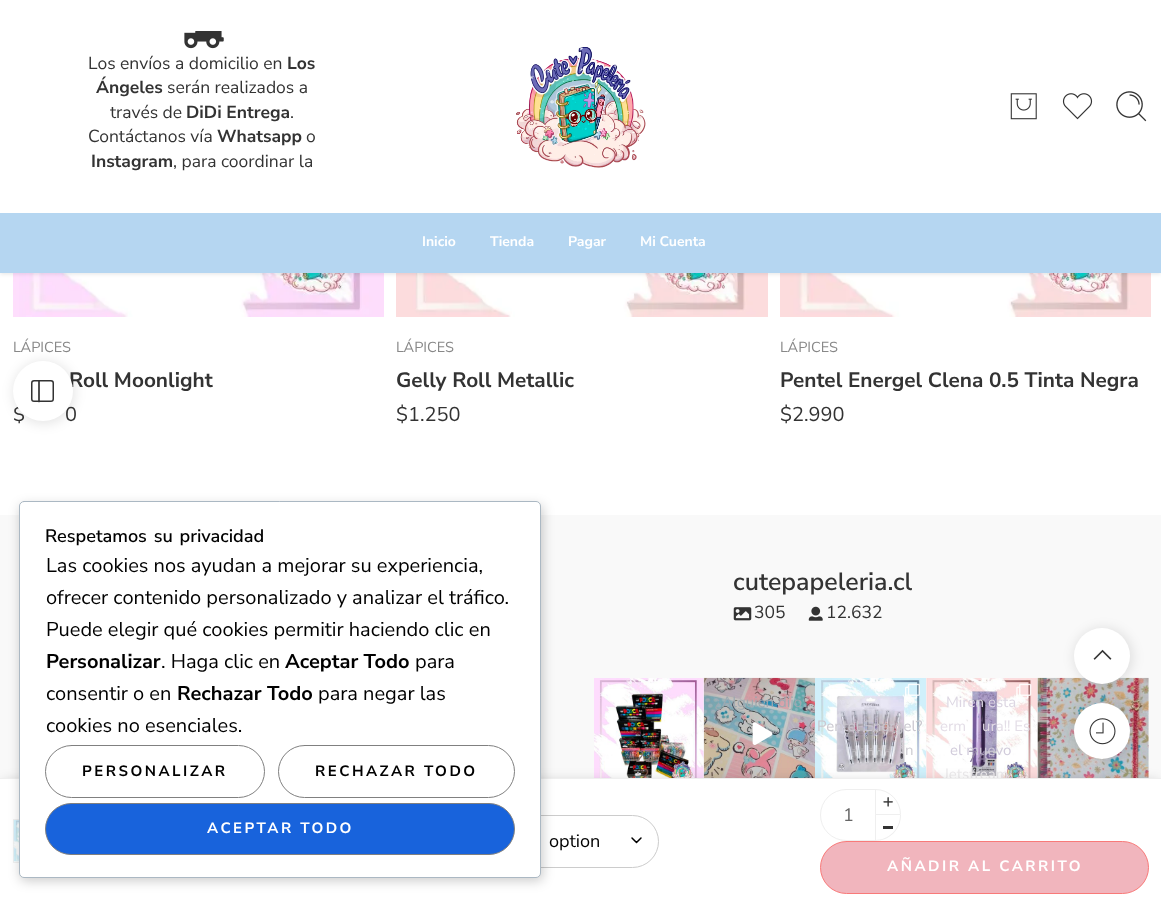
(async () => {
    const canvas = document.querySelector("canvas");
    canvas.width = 1161;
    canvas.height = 902;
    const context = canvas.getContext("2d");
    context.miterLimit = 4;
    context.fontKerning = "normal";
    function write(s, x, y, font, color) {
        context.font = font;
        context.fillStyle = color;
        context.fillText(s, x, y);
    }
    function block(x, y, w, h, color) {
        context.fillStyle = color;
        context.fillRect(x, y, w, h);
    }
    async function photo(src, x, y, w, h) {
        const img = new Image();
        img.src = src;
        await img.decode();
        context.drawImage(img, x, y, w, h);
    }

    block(0, 0, 1161, 902, "rgb(255, 255, 255)");
    await photo("media/6.png", 13, 273, 371, 44);
    await photo("media/7.png", 396, 273, 372, 44);
    await photo("media/8.png", 780, 273, 371, 44);
    context.fillStyle = "rgba(0, 0, 0, 0.1)";
    context.filter = "blur(2px)";
    context.beginPath();
    context.rect(0, 1, 1161, 273);
    context.fill();
    context.filter = "none";
    block(0, 0, 1161, 213, "rgb(255, 255, 255)");
    await photo("media/1.png", 184, 31, 40, 18);
    write("Los envíos a domicilio en", 88, 69, "17.5px Nunito Sans", "rgb(51, 51, 51)");
    write("Los", 287, 69, "bold 17.5px Nunito Sans", "rgb(51, 51, 51)");
    write("Ángeles", 96, 93, "bold 17.5px Nunito Sans", "rgb(51, 51, 51)");
    write("serán realizados a", 167, 93, "17.5px Nunito Sans", "rgb(51, 51, 51)");
    write("través de", 110, 118, "17.5px Nunito Sans", "rgb(51, 51, 51)");
    write("DiDi Entrega", 186, 118, "bold 17.5px Nunito Sans", "rgb(51, 51, 51)");
    write(".", 290, 118, "17.5px Nunito Sans", "rgb(51, 51, 51)");
    write("Contáctanos vía", 88, 142, "17.5px Nunito Sans", "rgb(51, 51, 51)");
    write("Whatsapp", 217, 142, "bold 17.5px Nunito Sans", "rgb(51, 51, 51)");
    write("o", 306, 142, "17.5px Nunito Sans", "rgb(51, 51, 51)");
    write("Instagram", 91, 167, "bold 17.5px Nunito Sans", "rgb(51, 51, 51)");
    write(", para coordinar la", 173, 167, "17.5px Nunito Sans", "rgb(51, 51, 51)");
    await photo("media/2.png", 516, 47, 130, 121);
    await photo("media/3.png", 1010, 93, 27, 27);
    await photo("media/4.png", 1062, 93, 31, 27);
    await photo("media/5.png", 1116, 91, 31, 31);
    block(0, 213, 1161, 60, "rgb(181, 214, 241)");
    write("Inicio", 422, 246, "bold 14px Nunito Sans", "rgb(255, 255, 255)");
    write("Tienda", 490, 246, "bold 14px Nunito Sans", "rgb(255, 255, 255)");
    write("Pagar", 568, 246, "bold 14px Nunito Sans", "rgb(255, 255, 255)");
    write("Mi Cuenta", 640, 246, "bold 14px Nunito Sans", "rgb(255, 255, 255)");
    write("LÁPICES", 13, 352, "14.5px Nunito Sans", "rgb(136, 136, 136)");
    write("Roll Moonlight", 69, 387, "bold 20.8px Nunito Sans", "rgb(51, 51, 51)");
    write("$", 13, 421, "20px Nunito Sans", "rgb(51, 51, 51)");
    write("0", 65, 421, "20px Nunito Sans", "rgb(51, 51, 51)");
    write("LÁPICES", 396, 352, "14.5px Nunito Sans", "rgb(136, 136, 136)");
    write("Gelly Roll Metallic", 396, 387, "bold 20.8px Nunito Sans", "rgb(51, 51, 51)");
    write("$1.250", 396, 421, "20px Nunito Sans", "rgb(51, 51, 51)");
    write("LÁPICES", 780, 352, "14.5px Nunito Sans", "rgb(136, 136, 136)");
    write("Pentel Energel Clena 0.5 Tinta Negra", 780, 387, "bold 20.8px Nunito Sans", "rgb(51, 51, 51)");
    write("$2.990", 780, 421, "20px Nunito Sans", "rgb(51, 51, 51)");
    context.fillStyle = "rgba(0, 0, 0, 0.1)";
    context.filter = "blur(6px)";
    context.beginPath();
    context.roundRect(13, 361, 62, 63, 31);
    context.fill();
    context.filter = "none";
    context.fillStyle = "rgb(255, 255, 255)";
    context.beginPath();
    context.arc(43, 391, 30, 0, Math.PI * 2);
    context.fill();
    context.beginPath();
    context.roundRect(31.75, 380.75, 21.5, 20.5, 2.25);
    context.strokeStyle = "rgb(51, 51, 51)";
    context.lineWidth = 1.5;
    context.stroke();
    context.beginPath();
    context.moveTo(39, 381);
    context.lineTo(39, 401.5);
    context.lineWidth = 1.7;
    context.lineCap = "round";
    context.lineJoin = "round";
    context.stroke();
    block(0, 515, 1161, 263, "rgb(249, 249, 249)");
    write("cutepapeleria.cl", 733, 590, "600 25px Nunito Sans", "rgb(51, 51, 51)");
    await photo("media/9.png", 733, 607, 19, 14);
    write("305", 754, 618, "17.5px Nunito Sans", "rgb(51, 51, 51)");
    await photo("media/10.png", 808, 606, 15, 15);
    write("12.632", 826, 618, "17.5px Nunito Sans", "rgb(51, 51, 51)");
    await photo("media/18.png", 594, 678, 110, 100);
    await photo("media/11.png", 703, 677, 112, 101);
    write("¿Alguien dijo", 715, 707, "15px Nunito Sans", "rgb(158, 169, 176)");
    write("☺", 794, 755, "15px Liberation Sans", "rgb(173, 165, 167)");
    write("14", 746, 780, "16px Nunito Sans", "rgb(173, 158, 157)");
    await photo("media/12.png", 752, 722, 21, 23);
    await photo("media/13.png", 815, 678, 111, 100);
    await photo("media/14.png", 905, 683, 15, 16);
    write("Pentel Energel?", 817, 731, "15px Nunito Sans", "rgb(202, 199, 207)");
    write("n", 905, 755, "15px Nunito Sans", "rgb(206, 205, 211)");
    await photo("media/15.png", 926, 678, 112, 100);
    await photo("media/16.png", 1016, 683, 16, 16);
    write("Miren esta", 946, 707, "15px Nunito Sans", "rgb(221, 215, 227)");
    write("erm", 940, 731, "15px Nunito Sans", "rgb(228, 222, 231)");
    write("ura!! Es", 982, 731, "15px Nunito Sans", "rgb(228, 222, 231)");
    write("el muevo", 950, 755, "15px Nunito Sans", "rgb(209, 203, 219)");
    write("Jetstream", 944, 779, "15px Nunito Sans", "rgb(236, 234, 236)");
    write("74", 968, 762, "16px Nunito Sans", "rgb(142, 128, 160)");
    await photo("media/17.png", 1037, 677, 112, 101);
    write("22", 635, 762, "16px Nunito Sans", "rgb(128, 111, 111)");
    write("2", 640, 780, "16px Nunito Sans", "rgb(119, 85, 72)");
    context.fillStyle = "rgba(0, 0, 0, 0.1)";
    context.filter = "blur(6px)";
    context.beginPath();
    context.roundRect(1074, 703, 59, 58, 29);
    context.fill();
    context.filter = "none";
    context.fillStyle = "rgba(0, 0, 0, 0.15)";
    context.filter = "blur(6px)";
    context.beginPath();
    context.rect(3, 780, 1156, 120);
    context.fill();
    context.filter = "none";
    block(0, 779, 1161, 123, "rgb(255, 255, 255)");
    block(0, 778, 1161, 1, "rgb(239, 239, 239)");
    context.strokeStyle = "rgb(241, 241, 241)";
    context.lineWidth = 1;
    context.lineJoin = "miter";
    context.strokeRect(13.5, 819.5, 42, 43);
    await photo("media/21.png", 13, 820, 6, 42);
    context.beginPath();
    context.moveTo(632, 838);
    context.lineTo(636.5, 842.5);
    context.lineTo(641, 838);
    context.strokeStyle = "rgb(0, 0, 0)";
    context.lineWidth = 1.5;
    context.lineJoin = "round";
    context.stroke();
    context.beginPath();
    context.roundRect(445.5, 815.5, 213, 52, 26);
    context.strokeStyle = "rgb(204, 204, 204)";
    context.lineWidth = 1;
    context.lineJoin = "miter";
    context.stroke();
    context.fillStyle = "rgba(0, 0, 0, 0.2)";
    context.filter = "blur(6px)";
    context.beginPath();
    context.roundRect(20, 505, 523, 376, 5);
    context.fill();
    context.filter = "none";
    context.fillStyle = "rgb(255, 255, 255)";
    context.beginPath();
    context.roundRect(19.5, 501.5, 521, 376, 4.5);
    context.fill();
    context.strokeStyle = "rgb(171, 184, 195)";
    context.stroke();
    context.wordSpacing = "2px";
    write("Respetamos su privacidad", 45, 542, "600 18.1px Nunito Sans", "rgb(0, 0, 0)");
    context.wordSpacing = "0px";
    write("Las cookies nos ayudan a mejorar su experiencia,", 46, 572, "20px Nunito Sans", "rgb(0, 0, 0)");
    write("ofrecer contenido personalizado y analizar el tráfico.", 46, 604, "20px Nunito Sans", "rgb(0, 0, 0)");
    write("Puede elegir qué cookies permitir haciendo clic en", 46, 636, "20px Nunito Sans", "rgb(0, 0, 0)");
    write("Personalizar", 46, 668, "bold 20px Nunito Sans", "rgb(0, 0, 0)");
    write(". Haga clic en", 161, 668, "20px Nunito Sans", "rgb(0, 0, 0)");
    write("Aceptar Todo", 285, 668, "bold 20px Nunito Sans", "rgb(0, 0, 0)");
    write("para", 415, 668, "20px Nunito Sans", "rgb(0, 0, 0)");
    write("consentir o en", 46, 700, "20px Nunito Sans", "rgb(0, 0, 0)");
    write("Rechazar Todo", 177, 700, "bold 20px Nunito Sans", "rgb(0, 0, 0)");
    write("para negar las", 318, 700, "20px Nunito Sans", "rgb(0, 0, 0)");
    write("cookies no esenciales.", 46, 732, "20px Nunito Sans", "rgb(0, 0, 0)");
    context.beginPath();
    context.roundRect(45.5, 745.5, 219, 52, 26);
    context.strokeStyle = "rgb(128, 128, 128)";
    context.stroke();
    context.letterSpacing = "2.5px";
    write("PERSONALIZAR", 82, 776, "bold 15px Nunito Sans", "rgb(0, 0, 0)");
    context.beginPath();
    context.roundRect(278.5, 745.5, 236, 52, 26);
    context.stroke();
    write("RECHAZAR TODO", 315, 776, "bold 15px Nunito Sans", "rgb(0, 0, 0)");
    context.fillStyle = "rgb(24, 99, 220)";
    context.beginPath();
    context.roundRect(45.5, 803.5, 469, 51, 25.5);
    context.fill();
    context.stroke();
    write("ACEPTAR TODO", 207, 833, "bold 15px Nunito Sans", "rgb(255, 255, 255)");
    context.fillStyle = "rgba(0, 0, 0, 0.1)";
    context.filter = "blur(6px)";
    context.beginPath();
    context.roundRect(1074, 628, 59, 58, 29);
    context.fill();
    context.filter = "none";
    context.fillStyle = "rgb(255, 255, 255)";
    context.beginPath();
    context.arc(1102, 656, 28, 0, Math.PI * 2);
    context.fill();
    await photo("media/19.png", 1093, 649, 19, 11);
    context.beginPath();
    context.arc(1102, 731, 28, 0, Math.PI * 2);
    context.fill();
    await photo("media/20.png", 1089, 718, 27, 27);
    context.letterSpacing = "0px";
    write("option", 549, 847, "18.1px Nunito Sans", "rgb(0, 0, 0)");
    context.beginPath();
    context.roundRect(820.5, 789.5, 55, 51, [25.5, 0, 0, 25.5]);
    context.strokeStyle = "rgb(239, 239, 239)";
    context.stroke();
    write("1", 843, 821, "18.1px Nunito Sans", "rgb(102, 102, 102)");
    context.fillStyle = "rgb(255, 255, 255)";
    context.beginPath();
    context.roundRect(875.5, 789.5, 25, 25, [0, 25.5, 0, 0]);
    context.fill();
    context.stroke();
    await photo("media/22.png", 883, 797, 10, 10);
    context.beginPath();
    context.roundRect(875, 815, 26, 26, [0, 0, 26, 0]);
    context.fill();
    context.fillStyle = "rgb(239, 239, 239)";
    context.beginPath();
    context.moveTo(875, 815);
    context.lineTo(901, 815);
    context.bezierCurveTo(901, 829.5, 889.5, 841, 875, 841);
    context.closePath();
    context.moveTo(876, 815);
    context.lineTo(900, 815);
    context.bezierCurveTo(900, 829, 889, 840, 875, 840);
    context.lineTo(876, 840);
    context.closePath();
    context.fill("evenodd");
    block(883, 826, 10, 3, "rgb(51, 51, 51)");
    context.fillStyle = "rgb(241, 181, 189)";
    context.beginPath();
    context.roundRect(820.5, 841.5, 328, 52, 26);
    context.fill();
    context.strokeStyle = "rgb(248, 122, 121)";
    context.stroke();
    context.letterSpacing = "2.5px";
    write("AÑADIR AL CARRITO", 887, 871, "bold 15px Nunito Sans", "rgb(255, 255, 255)");
})();
